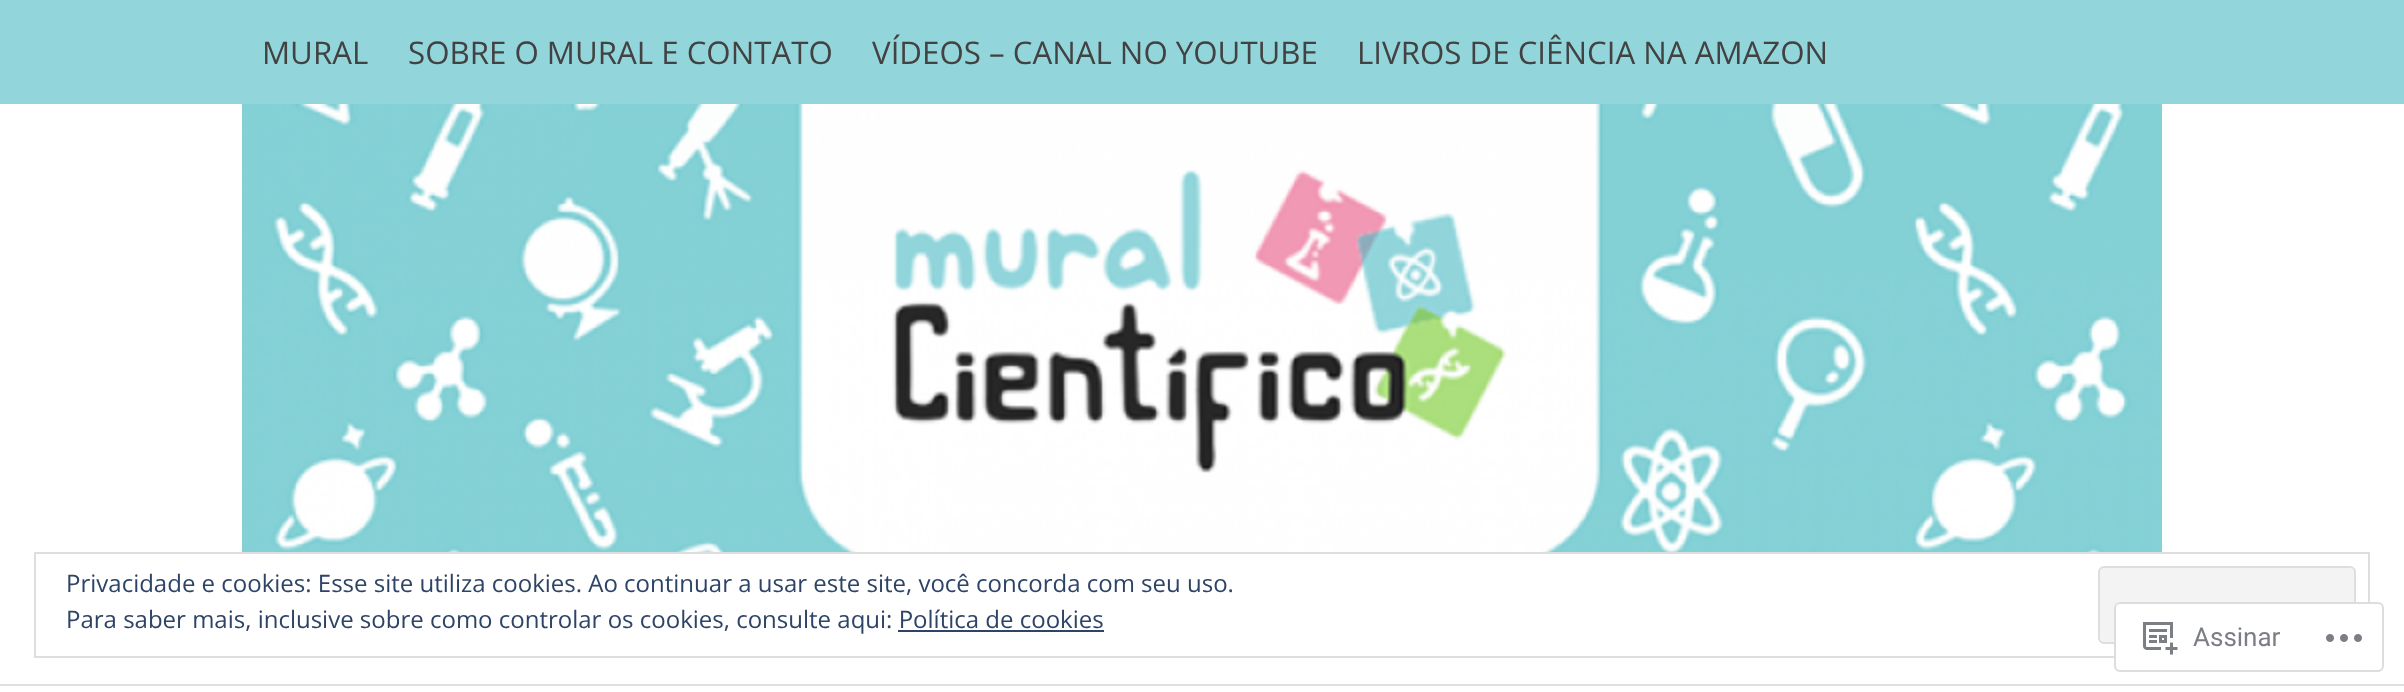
(async () => {
    const canvas = document.querySelector("canvas");
    canvas.width = 2404;
    canvas.height = 692;
    const context = canvas.getContext("2d");
    context.miterLimit = 4;
    context.fontKerning = "normal";
    function write(s, x, y, font, color) {
        context.font = font;
        context.fillStyle = color;
        context.fillText(s, x, y);
    }
    function block(x, y, w, h, color) {
        context.fillStyle = color;
        context.fillRect(x, y, w, h);
    }
    function card(x, y, w, h, r, color) {
        context.fillStyle = color;
        context.beginPath();
        context.roundRect(x, y, w, h, r);
        context.fill();
    }
    async function photo(src, x, y, w, h) {
        const img = new Image();
        img.src = src;
        await img.decode();
        context.drawImage(img, x, y, w, h);
    }

    block(0, 0, 2404, 692, "rgb(255, 255, 255)");
    block(0, 0, 2404, 104, "rgb(146, 214, 220)");
    write("MURAL", 262, 64, "31.25px Open Sans", "rgb(66, 66, 66)");
    write("SOBRE O MURAL E CONTATO", 408, 64, "31.25px Open Sans", "rgb(66, 66, 66)");
    write("VÍDEOS – CANAL NO YOUTUBE", 872, 64, "31.25px Open Sans", "rgb(66, 66, 66)");
    write("LIVROS DE CIÊNCIA NA AMAZON", 1357, 64, "31.25px Open Sans", "rgb(66, 66, 66)");
    block(0, 684, 2404, 2, "rgb(224, 224, 224)");
    await photo("media/1.png", 242, 104, 1920, 448);
    context.strokeStyle = "rgb(222, 222, 222)";
    context.lineWidth = 2;
    context.strokeRect(35, 553, 2334, 104);
    write("Privacidade e cookies: Esse site utiliza cookies. Ao continuar a usar este site, você concorda com seu uso.", 66, 592, "24px Open Sans", "rgb(46, 68, 103)");
    context.fillStyle = "rgb(243, 243, 243)";
    context.beginPath();
    context.roundRect(2099, 567, 256, 76, 5);
    context.fill();
    context.stroke();
    write("Para saber mais, inclusive sobre como controlar os cookies, consulte aqui: Política de cookies", 66, 628, "24px Open Sans", "rgb(46, 68, 103)");
    block(898, 630, 206, 2, "rgb(46, 68, 103)");
    card(2114, 602, 270, 70, 6, "rgba(255, 255, 255, 0.98)");
    context.beginPath();
    context.roundRect(2115, 603, 268, 68, 5);
    context.strokeStyle = "rgba(220, 220, 222, 0.98)";
    context.stroke();
    await photo("media/2.png", 2143, 622, 35, 33);
    write("Assinar", 2193, 646, "26px Roboto", "rgb(123, 127, 132)");
    await photo("media/3.png", 2326, 634, 36, 8);
})();
